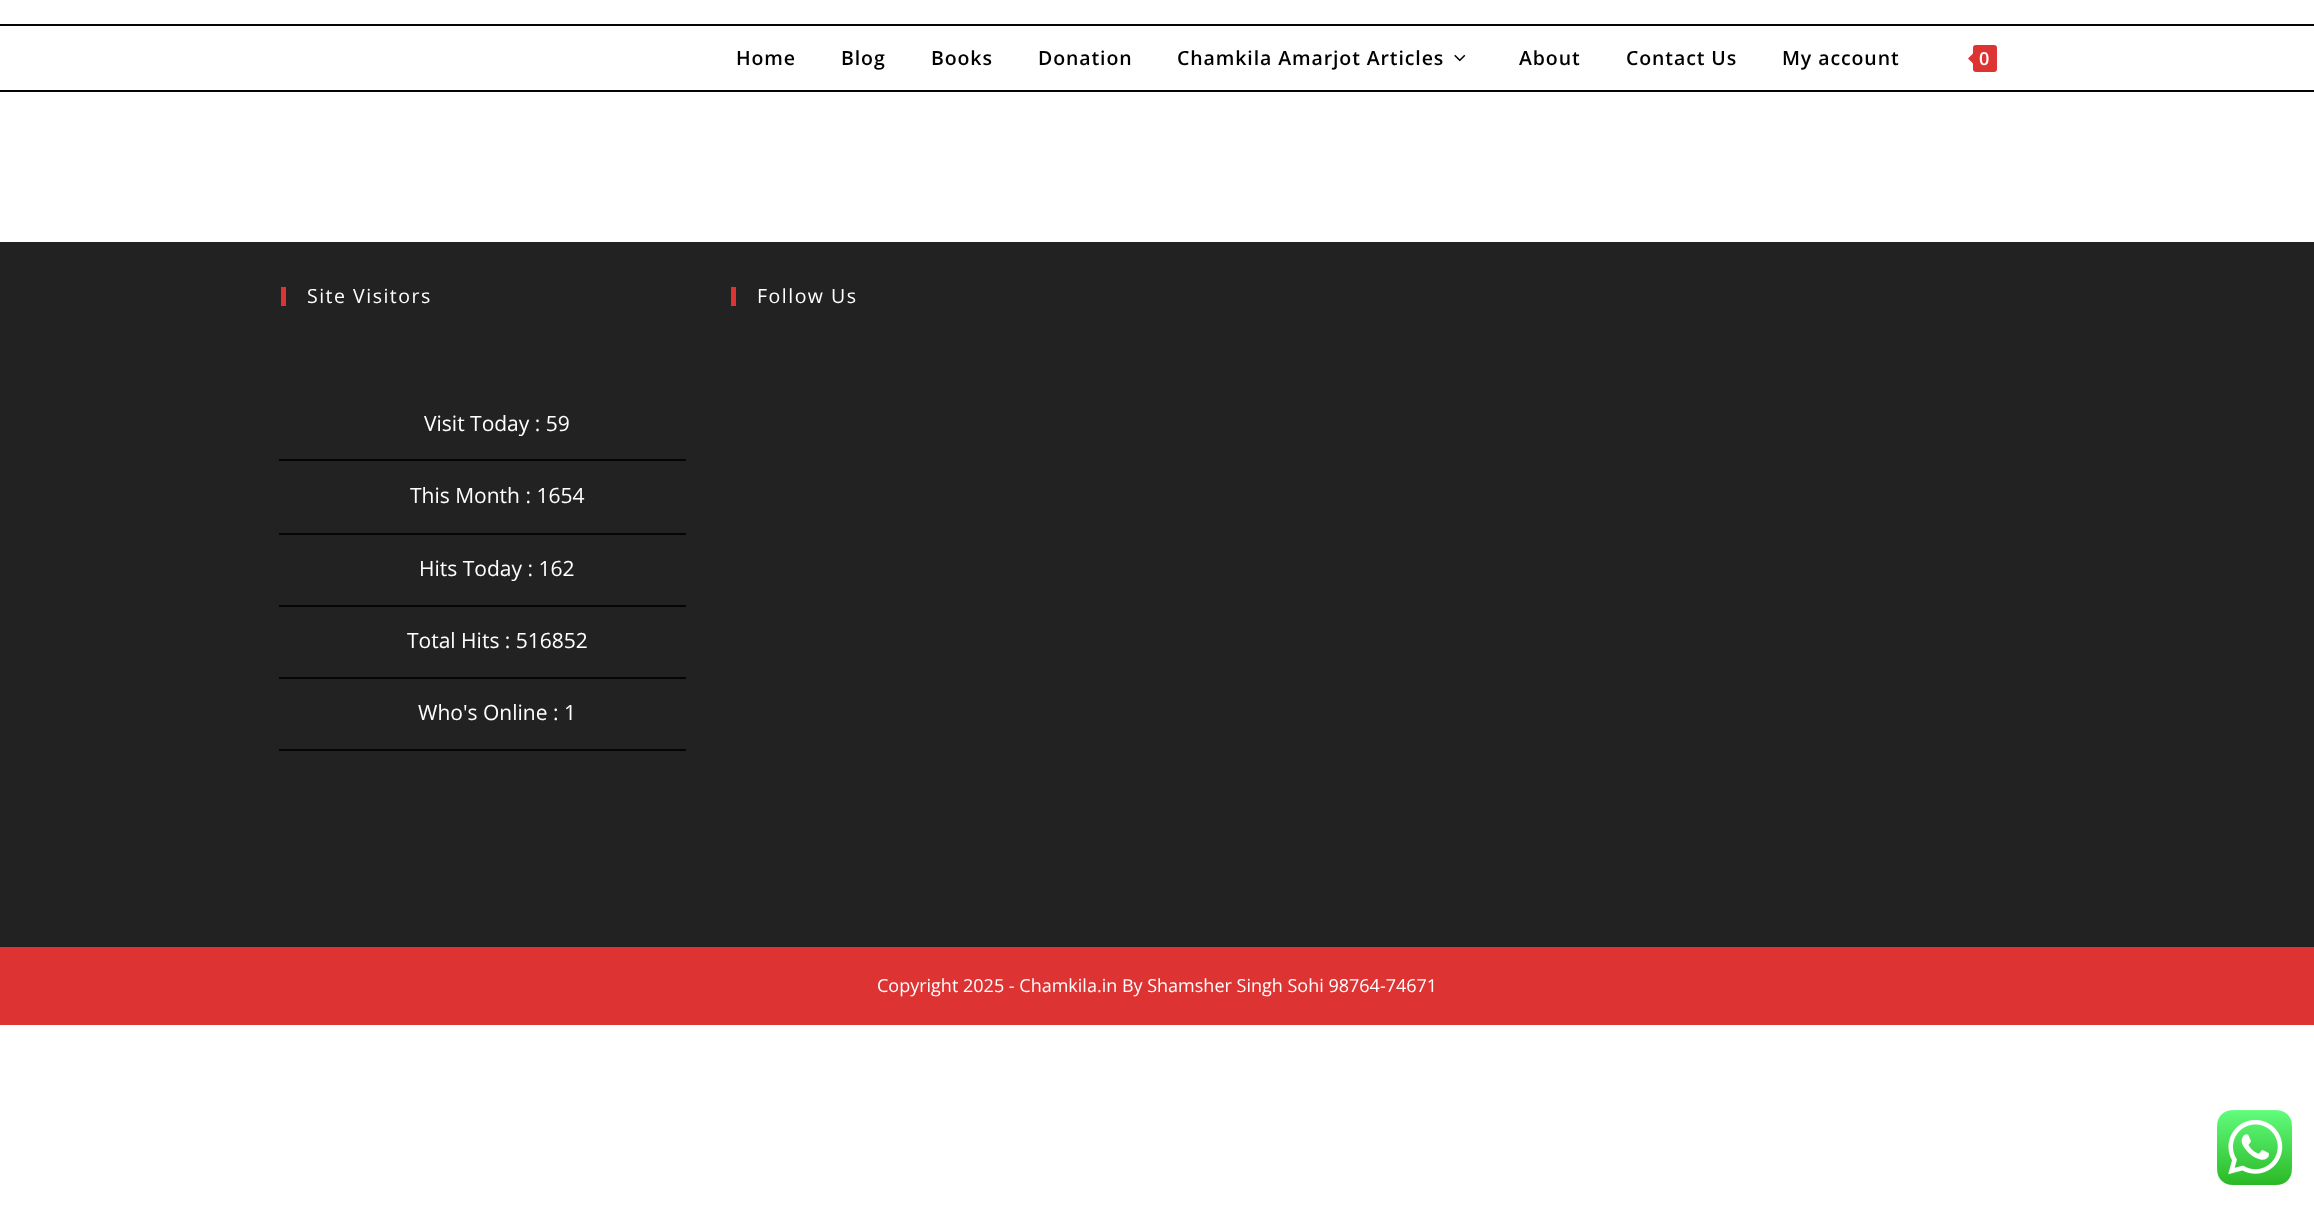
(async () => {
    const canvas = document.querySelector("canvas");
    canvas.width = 2314;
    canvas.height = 1207;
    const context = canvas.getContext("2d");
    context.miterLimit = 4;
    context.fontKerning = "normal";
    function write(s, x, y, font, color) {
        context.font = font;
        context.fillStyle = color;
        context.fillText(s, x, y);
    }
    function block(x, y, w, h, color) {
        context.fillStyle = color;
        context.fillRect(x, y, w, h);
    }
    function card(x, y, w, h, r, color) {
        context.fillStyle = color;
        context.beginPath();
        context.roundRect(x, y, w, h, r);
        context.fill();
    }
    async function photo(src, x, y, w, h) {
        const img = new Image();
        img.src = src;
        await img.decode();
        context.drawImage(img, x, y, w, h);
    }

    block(0, 0, 2314, 1207, "rgb(255, 255, 255)");
    block(0, 24, 2314, 2, "rgb(5, 5, 5)");
    block(0, 90, 2314, 2, "rgb(5, 5, 5)");
    context.letterSpacing = "0.9px";
    write("Home", 736, 65, "600 19.5px Open Sans", "rgb(0, 0, 0)");
    write("Blog", 841, 65, "600 19.5px Open Sans", "rgb(0, 0, 0)");
    write("Books", 931, 65, "600 19.5px Open Sans", "rgb(0, 0, 0)");
    write("Donation", 1038, 65, "600 19.5px Open Sans", "rgb(0, 0, 0)");
    write("Chamkila Amarjot Articles", 1177, 65, "600 19.5px Open Sans", "rgb(0, 0, 0)");
    await photo("media/1.png", 1454, 54, 12, 8);
    write("About", 1519, 65, "600 19.5px Open Sans", "rgb(0, 0, 0)");
    write("Contact Us", 1626, 65, "600 19.5px Open Sans", "rgb(0, 0, 0)");
    write("My account", 1782, 65, "600 19.5px Open Sans", "rgb(0, 0, 0)");
    card(1973, 45, 24, 27, 3, "rgb(221, 51, 51)");
    context.beginPath();
    context.moveTo(1975.5, 51);
    context.lineTo(1975.5, 66);
    context.lineTo(1968, 58.5);
    context.closePath();
    context.fill();
    context.letterSpacing = "0px";
    write("0", 1979, 65, "600 18px Open Sans", "rgb(255, 255, 255)");
    block(0, 242, 2314, 705, "rgb(34, 34, 34)");
    block(281, 287, 5, 19, "rgb(221, 51, 51)");
    context.letterSpacing = "1.5px";
    write("Site Visitors", 307, 303, "19.5px Open Sans", "rgb(255, 255, 255)");
    block(279, 459, 407, 2, "rgb(5, 5, 5)");
    context.letterSpacing = "0px";
    write("Visit Today : 59", 424, 431, "21px Open Sans", "rgb(255, 255, 255)");
    block(279, 533, 407, 2, "rgb(5, 5, 5)");
    write("This Month : 1654", 410, 503, "21px Open Sans", "rgb(255, 255, 255)");
    block(279, 605, 407, 2, "rgb(5, 5, 5)");
    write("Hits Today : 162", 419, 576, "21px Open Sans", "rgb(255, 255, 255)");
    block(279, 677, 407, 2, "rgb(5, 5, 5)");
    write("Total Hits : 516852", 407, 648, "21px Open Sans", "rgb(255, 255, 255)");
    block(279, 749, 407, 2, "rgb(5, 5, 5)");
    write("Who's Online : 1", 418, 720, "21px Open Sans", "rgb(255, 255, 255)");
    block(731, 287, 5, 19, "rgb(221, 51, 51)");
    context.letterSpacing = "1.5px";
    write("Follow Us", 757, 303, "19.5px Open Sans", "rgb(255, 255, 255)");
    block(0, 947, 2314, 78, "rgb(221, 51, 51)");
    context.letterSpacing = "0px";
    write("Copyright 2025 - Chamkila.in By Shamsher Singh Sohi 98764-74671", 877, 992, "18px Open Sans", "rgb(255, 255, 255)");
    await photo("media/2.png", 2217, 1110, 75, 75);
})();
